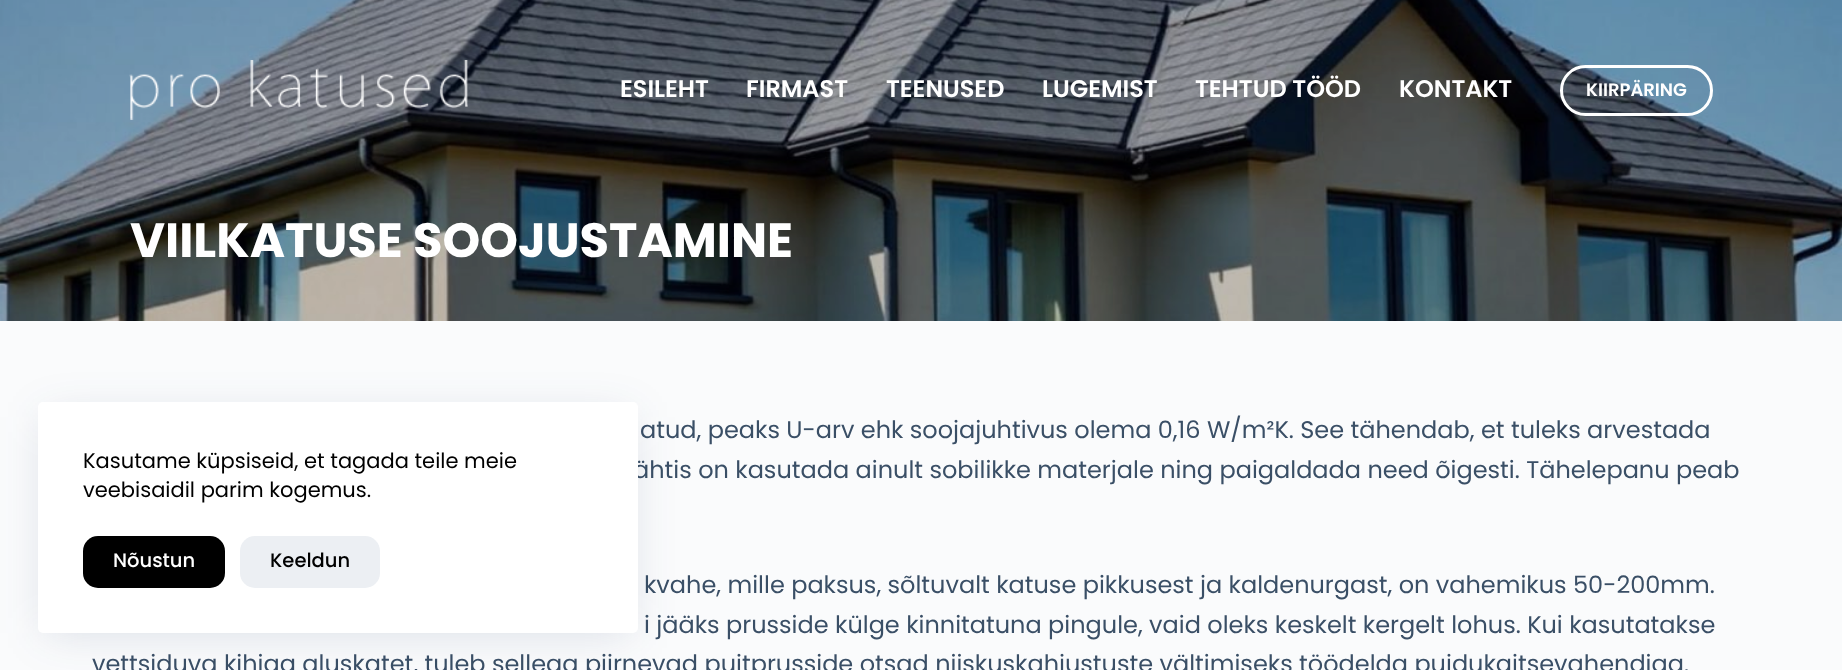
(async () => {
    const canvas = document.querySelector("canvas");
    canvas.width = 1842;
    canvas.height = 670;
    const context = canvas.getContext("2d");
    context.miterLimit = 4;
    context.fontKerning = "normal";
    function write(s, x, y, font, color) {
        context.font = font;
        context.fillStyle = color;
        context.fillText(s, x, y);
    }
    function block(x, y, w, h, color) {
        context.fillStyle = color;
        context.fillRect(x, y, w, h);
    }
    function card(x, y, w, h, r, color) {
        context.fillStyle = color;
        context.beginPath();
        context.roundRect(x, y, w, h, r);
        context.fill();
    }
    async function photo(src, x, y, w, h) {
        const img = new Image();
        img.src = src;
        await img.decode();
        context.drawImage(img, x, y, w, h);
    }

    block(0, 0, 1842, 670, "rgb(250, 251, 252)");
    await photo("media/2.png", 0, 0, 1842, 321);
    await photo("media/1.png", 129, 60, 339, 60);
    write("ESILEHT", 620, 97, "600 24px Poppins", "rgb(255, 255, 255)");
    write("FIRMAST", 746, 97, "600 24px Poppins", "rgb(255, 255, 255)");
    write("TEENUSED", 886, 97, "600 24px Poppins", "rgb(255, 255, 255)");
    write("LUGEMIST", 1042, 97, "600 24px Poppins", "rgb(255, 255, 255)");
    write("TEHTUD TÖÖD", 1195, 97, "600 24px Poppins", "rgb(255, 255, 255)");
    write("KONTAKT", 1399, 97, "600 24px Poppins", "rgb(255, 255, 255)");
    context.beginPath();
    context.roundRect(1561.5, 66.5, 150, 48, 24);
    context.strokeStyle = "rgb(255, 255, 255)";
    context.lineWidth = 3;
    context.stroke();
    write("KIIRPÄRING", 1586, 96, "600 18px Poppins", "rgb(255, 255, 255)");
    write("VIILKATUSE SOOJUSTAMINE", 130, 257, "bold 48px Poppins", "rgb(255, 255, 255)");
    write("atud, peaks U-arv ehk soojajuhtivus olema 0,16 W/m²K. See tähendab, et tuleks arvestada", 640, 438, "24px Poppins", "rgb(58, 79, 102)");
    write("ähtis on kasutada ainult sobilikke materjale ning paigaldada need õigesti. Tähelepanu peab", 633, 478, "24px Poppins", "rgb(58, 79, 102)");
    write("kvahe, mille paksus, sõltuvalt katuse pikkusest ja kaldenurgast, on vahemikus 50-200mm.", 644, 593, "24px Poppins", "rgb(58, 79, 102)");
    write("i jääks prusside külge kinnitatuna pingule, vaid oleks keskelt kergelt lohus. Kui kasutatakse", 644, 633, "24px Poppins", "rgb(58, 79, 102)");
    write("vettsiduva kihiga aluskatet, tuleb sellega piirnevad puitprusside otsad niiskuskahjustuste vältimiseks töödelda puidukaitsevahendiga.", 92, 672, "24px Poppins", "rgb(58, 79, 102)");
    context.fillStyle = "rgba(34, 56, 101, 0.15)";
    context.filter = "blur(22.5px)";
    context.beginPath();
    context.rect(45, 417, 585, 216);
    context.fill();
    context.filter = "none";
    card(38, 402, 600, 231, 5, "rgb(255, 255, 255)");
    write("Kasutame küpsiseid, et tagada teile meie", 83, 468, "21px Poppins", "rgb(0, 0, 0)");
    write("veebisaidil parim kogemus.", 83, 497, "21px Poppins", "rgb(0, 0, 0)");
    card(83, 536, 142, 52, 15, "rgb(0, 0, 0)");
    write("Nõustun", 113, 567, "500 19.5px Poppins", "rgb(255, 255, 255)");
    card(240, 536, 140, 52, 15, "rgb(236, 239, 243)");
    write("Keeldun", 270, 567, "500 19.5px Poppins", "rgb(0, 0, 0)");
})();
